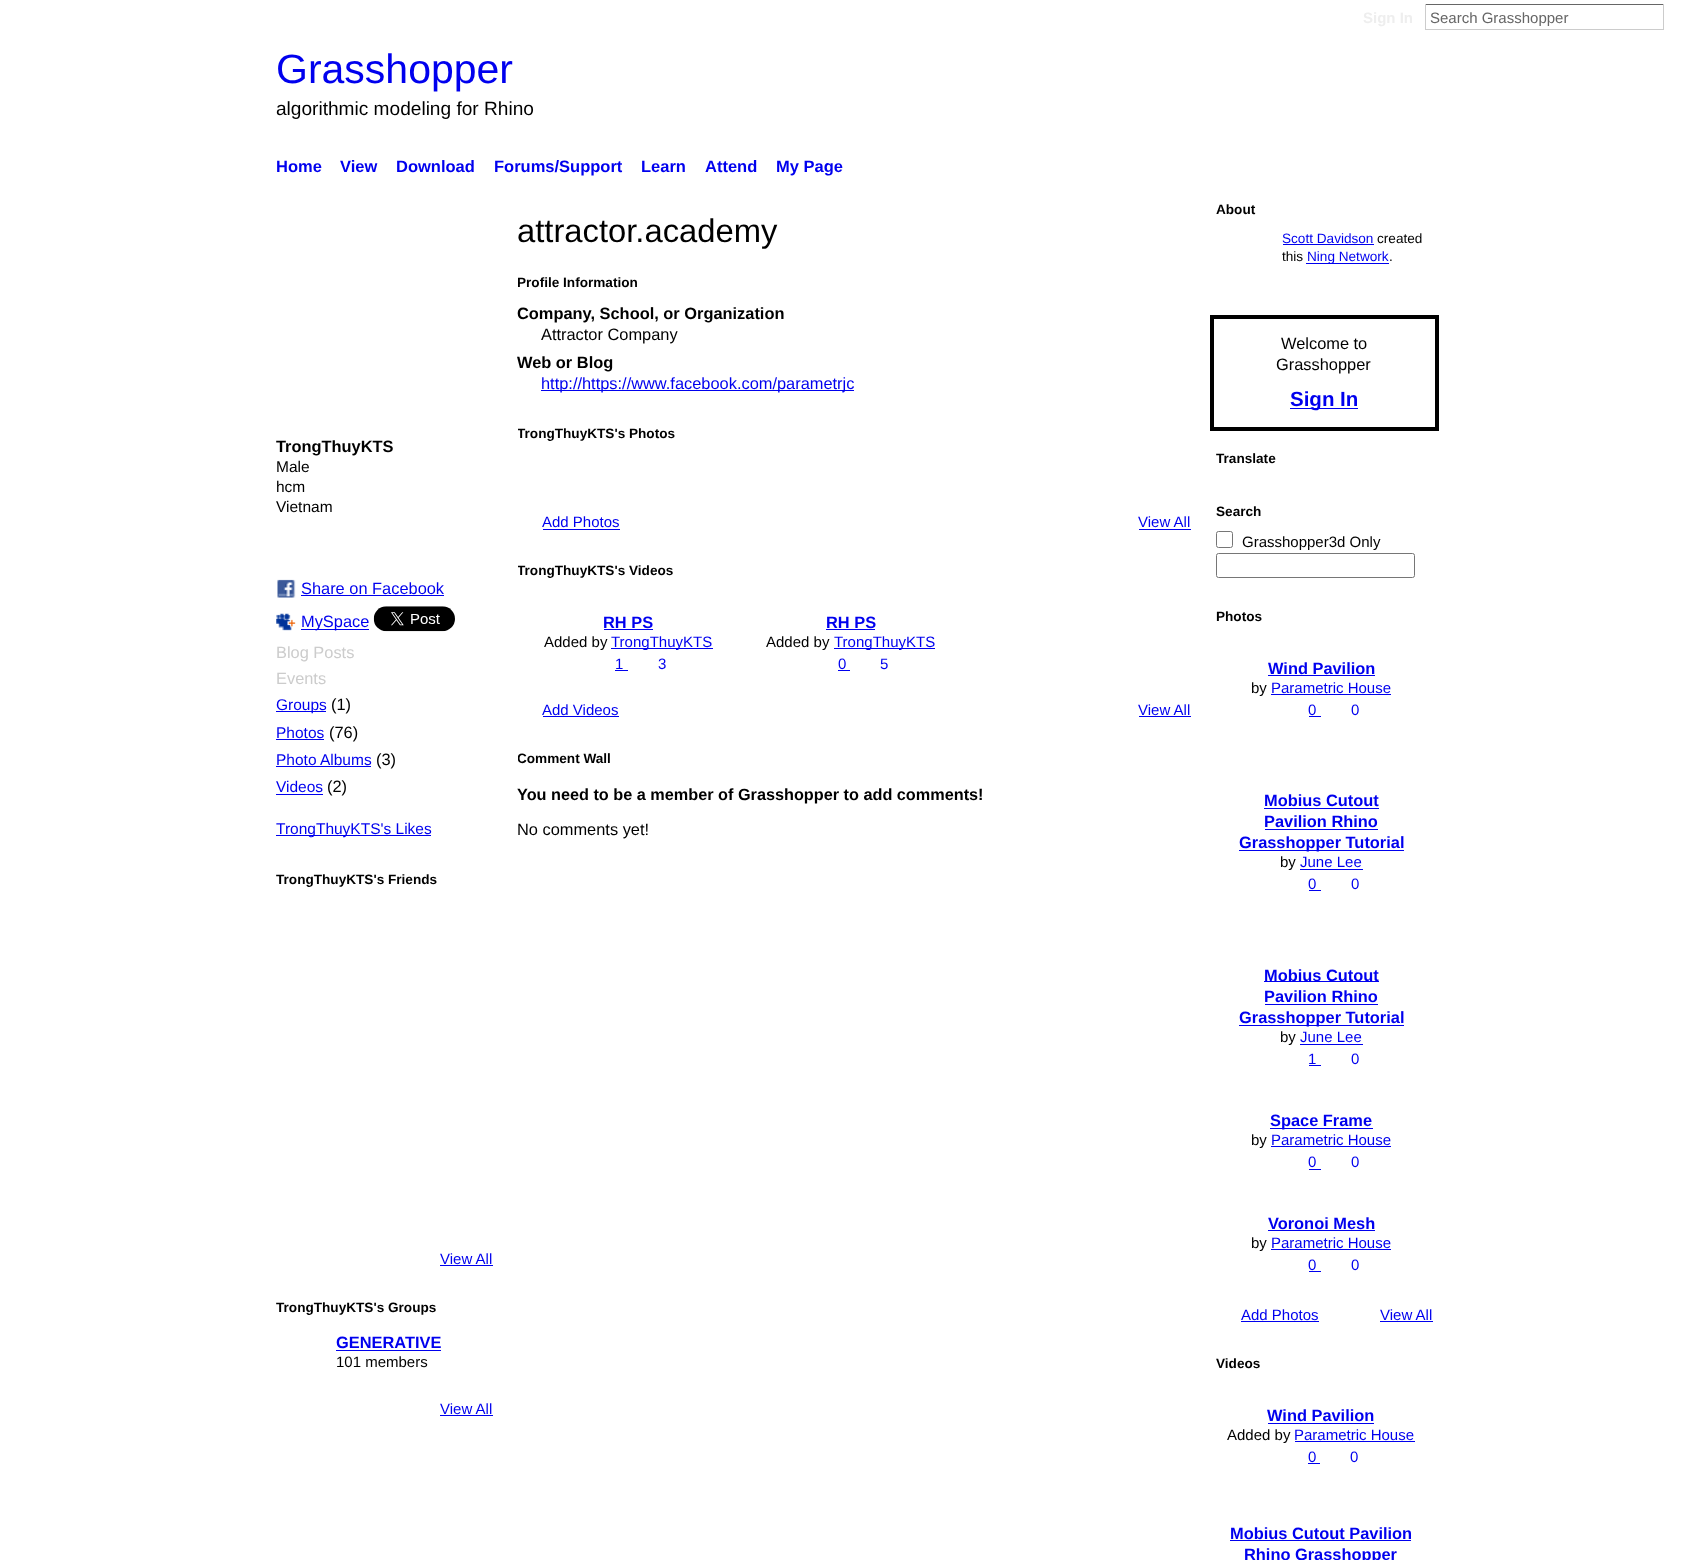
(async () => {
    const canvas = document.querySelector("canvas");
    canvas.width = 1707;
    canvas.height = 1560;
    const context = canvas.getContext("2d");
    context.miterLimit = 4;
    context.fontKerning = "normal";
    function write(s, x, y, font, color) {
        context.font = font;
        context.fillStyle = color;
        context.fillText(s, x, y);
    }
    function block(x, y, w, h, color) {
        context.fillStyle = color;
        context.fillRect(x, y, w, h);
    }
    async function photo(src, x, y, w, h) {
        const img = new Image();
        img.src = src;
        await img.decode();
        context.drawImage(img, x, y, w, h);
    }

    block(0, 0, 1707, 1560, "rgb(255, 255, 255)");
    write("Sign In", 1363, 23, "bold 15px Liberation Sans", "rgb(238, 238, 238)");
    block(1425, 4, 239, 1, "rgb(102, 102, 102)");
    block(1663, 4, 1, 26, "rgb(204, 204, 204)");
    block(1425, 29, 239, 1, "rgb(204, 204, 204)");
    block(1425, 4, 1, 26, "rgb(204, 204, 204)");
    context.save();
    context.beginPath();
    context.rect(1430, 9, 229, 17);
    context.clip();
    write("Search Grasshopper", 1430, 23, "15px Liberation Sans", "rgb(102, 102, 102)");
    context.restore();
    write("Grasshopper", 276, 83, "41px Liberation Sans", "rgb(0, 0, 238)");
    write("algorithmic modeling for Rhino", 276, 115, "19.1px Liberation Sans", "rgb(0, 0, 0)");
    write("Home", 276, 172, "bold 16.5px Liberation Sans", "rgb(0, 0, 238)");
    write("View", 340, 172, "bold 16.5px Liberation Sans", "rgb(0, 0, 238)");
    write("Download", 396, 172, "bold 16.5px Liberation Sans", "rgb(0, 0, 238)");
    write("Forums/Support", 494, 172, "bold 16.5px Liberation Sans", "rgb(0, 0, 238)");
    write("Learn", 641, 172, "bold 16.5px Liberation Sans", "rgb(0, 0, 238)");
    write("Attend", 705, 172, "bold 16.5px Liberation Sans", "rgb(0, 0, 238)");
    write("My Page", 776, 172, "bold 16.5px Liberation Sans", "rgb(0, 0, 238)");
    write("TrongThuyKTS", 276, 452, "bold 16.4px Liberation Sans", "rgb(0, 0, 0)");
    write("Male", 276, 472, "15.5px Liberation Sans", "rgb(0, 0, 0)");
    write("hcm", 276, 492, "15.5px Liberation Sans", "rgb(0, 0, 0)");
    write("Vietnam", 276, 512, "15.5px Liberation Sans", "rgb(0, 0, 0)");
    await photo("media/1.png", 277, 579, 19, 19);
    write("Share on Facebook", 301, 594, "16.4px Liberation Sans", "rgb(0, 0, 238)");
    block(301, 595, 143, 1, "rgb(0, 0, 238)");
    await photo("media/2.png", 276, 613, 20, 18);
    block(301, 629, 68, 1, "rgb(0, 0, 238)");
    write("MySpace", 301, 627, "16.4px Liberation Sans", "rgb(0, 0, 238)");
    await photo("media/3.png", 373, 606, 82, 26);
    write("Blog Posts", 276, 658, "16.4px Liberation Sans", "rgb(204, 204, 204)");
    write("Events", 276, 684, "16.4px Liberation Sans", "rgb(204, 204, 204)");
    block(276, 711, 50, 1, "rgb(0, 0, 238)");
    write("Groups", 276, 710, "15.5px Liberation Sans", "rgb(0, 0, 238)");
    write("(1)", 331, 710, "16.4px Liberation Sans", "rgb(0, 0, 0)");
    write("Photos", 276, 738, "15.5px Liberation Sans", "rgb(0, 0, 238)");
    block(276, 739, 48, 1, "rgb(0, 0, 238)");
    write("(76)", 329, 738, "16.4px Liberation Sans", "rgb(0, 0, 0)");
    write("Photo Albums", 276, 765, "15.5px Liberation Sans", "rgb(0, 0, 238)");
    block(276, 766, 95, 1, "rgb(0, 0, 238)");
    write("(3)", 376, 765, "16.4px Liberation Sans", "rgb(0, 0, 0)");
    write("Videos", 276, 792, "15.5px Liberation Sans", "rgb(0, 0, 238)");
    block(276, 794, 47, 1, "rgb(0, 0, 238)");
    write("(2)", 327, 792, "16.4px Liberation Sans", "rgb(0, 0, 0)");
    block(276, 835, 155, 1, "rgb(0, 0, 238)");
    write("TrongThuyKTS's Likes", 276, 834, "15.5px Liberation Sans", "rgb(0, 0, 238)");
    write("TrongThuyKTS's Friends", 276, 884, "bold 13.6px Liberation Sans", "rgb(0, 0, 0)");
    write("View All", 440, 1264, "15px Liberation Sans", "rgb(0, 0, 238)");
    block(440, 1265, 53, 1, "rgb(0, 0, 238)");
    write("TrongThuyKTS's Groups", 276, 1312, "bold 13.6px Liberation Sans", "rgb(0, 0, 0)");
    write("GENERATIVE", 336, 1348, "bold 16.4px Liberation Sans", "rgb(0, 0, 238)");
    block(336, 1350, 105, 1, "rgb(0, 0, 238)");
    write("101 members", 336, 1367, "15px Liberation Sans", "rgb(0, 0, 0)");
    write("View All", 440, 1414, "15px Liberation Sans", "rgb(0, 0, 238)");
    block(440, 1415, 53, 1, "rgb(0, 0, 238)");
    write("attractor.academy", 517, 242, "32.75px Liberation Sans", "rgb(0, 0, 0)");
    context.save();
    context.beginPath();
    context.rect(518, 274, 120, 17);
    context.clip();
    write("Profile Information", 517, 287, "bold 13.6px Liberation Sans", "rgb(0, 0, 0)");
    context.restore();
    write("Company, School, or Organization", 517, 319, "bold 16.4px Liberation Sans", "rgb(0, 0, 0)");
    write("Attractor Company", 541, 340, "16.4px Liberation Sans", "rgb(0, 0, 0)");
    write("Web or Blog", 517, 368, "bold 16.4px Liberation Sans", "rgb(0, 0, 0)");
    block(541, 390, 313, 1, "rgb(0, 0, 238)");
    write("http://https://www.facebook.com/parametrjc", 541, 389, "16.4px Liberation Sans", "rgb(0, 0, 238)");
    context.save();
    context.beginPath();
    context.rect(518, 424, 157, 19);
    context.clip();
    write("TrongThuyKTS's Photos", 517, 438, "bold 13.6px Liberation Sans", "rgb(0, 0, 0)");
    context.restore();
    write("Add Photos", 542, 527, "15px Liberation Sans", "rgb(0, 0, 238)");
    block(543, 529, 77, 1, "rgb(0, 0, 238)");
    write("View All", 1138, 527, "15px Liberation Sans", "rgb(0, 0, 238)");
    block(1139, 529, 52, 1, "rgb(0, 0, 238)");
    context.save();
    context.beginPath();
    context.rect(518, 561, 156, 18);
    context.clip();
    write("TrongThuyKTS's Videos", 517, 575, "bold 13.6px Liberation Sans", "rgb(0, 0, 0)");
    context.restore();
    write("RH PS", 603, 628, "bold 16.4px Liberation Sans", "rgb(0, 0, 238)");
    block(604, 629, 49, 1, "rgb(0, 0, 238)");
    write("Added by", 544, 647, "15px Liberation Sans", "rgb(0, 0, 0)");
    block(611, 648, 102, 1, "rgb(0, 0, 238)");
    write("TrongThuyKTS", 611, 647, "15px Liberation Sans", "rgb(0, 0, 238)");
    write("1", 615, 669, "15px Liberation Sans", "rgb(0, 0, 238)");
    block(615, 670, 13, 1, "rgb(0, 0, 238)");
    write("3", 658, 669, "15px Liberation Sans", "rgb(0, 0, 238)");
    write("RH PS", 826, 628, "bold 16.4px Liberation Sans", "rgb(0, 0, 238)");
    block(826, 629, 49, 1, "rgb(0, 0, 238)");
    write("Added by", 766, 647, "15px Liberation Sans", "rgb(0, 0, 0)");
    block(834, 648, 101, 1, "rgb(0, 0, 238)");
    write("TrongThuyKTS", 834, 647, "15px Liberation Sans", "rgb(0, 0, 238)");
    write("0", 838, 669, "15px Liberation Sans", "rgb(0, 0, 238)");
    block(838, 670, 12, 1, "rgb(0, 0, 238)");
    write("5", 880, 669, "15px Liberation Sans", "rgb(0, 0, 238)");
    write("Add Videos", 542, 715, "15px Liberation Sans", "rgb(0, 0, 238)");
    block(543, 716, 76, 1, "rgb(0, 0, 238)");
    write("View All", 1138, 715, "15px Liberation Sans", "rgb(0, 0, 238)");
    block(1139, 716, 52, 1, "rgb(0, 0, 238)");
    context.save();
    context.beginPath();
    context.rect(518, 749, 93, 19);
    context.clip();
    write("Comment Wall", 517, 763, "bold 13.6px Liberation Sans", "rgb(0, 0, 0)");
    context.restore();
    write("You need to be a member of Grasshopper to add comments!", 517, 800, "bold 16.25px Liberation Sans", "rgb(0, 0, 0)");
    write("No comments yet!", 517, 835, "16.4px Liberation Sans", "rgb(0, 0, 0)");
    write("About", 1216, 214, "bold 13.6px Liberation Sans", "rgb(0, 0, 0)");
    write("Scott Davidson", 1282, 243, "13.6px Liberation Sans", "rgb(0, 0, 238)");
    block(1283, 244, 91, 1, "rgb(0, 0, 238)");
    write("created", 1377, 243, "13.6px Liberation Sans", "rgb(0, 0, 0)");
    write("this", 1282, 261, "13.6px Liberation Sans", "rgb(0, 0, 0)");
    block(1306, 263, 83, 1, "rgb(0, 0, 238)");
    write("Ning Network", 1307, 261, "13.6px Liberation Sans", "rgb(0, 0, 238)");
    write(".", 1389, 261, "13.6px Liberation Sans", "rgb(0, 0, 0)");
    context.strokeStyle = "rgb(0, 0, 0)";
    context.lineWidth = 4;
    context.strokeRect(1212, 317, 225, 112);
    write("Welcome to", 1281, 349, "16.4px Liberation Sans", "rgb(0, 0, 0)");
    write("Grasshopper", 1276, 370, "16.4px Liberation Sans", "rgb(0, 0, 0)");
    block(1290, 408, 68, 1, "rgb(0, 0, 238)");
    write("Sign In", 1290, 406, "bold 20.5px Liberation Sans", "rgb(0, 0, 238)");
    write("Translate", 1216, 463, "bold 13.6px Liberation Sans", "rgb(0, 0, 0)");
    write("Search", 1216, 516, "bold 13.6px Liberation Sans", "rgb(0, 0, 0)");
    context.beginPath();
    context.roundRect(1216.5, 531.5, 16, 16, 2);
    context.strokeStyle = "rgb(118, 118, 118)";
    context.lineWidth = 1;
    context.stroke();
    write("Grasshopper3d Only", 1242, 547, "15px Liberation Sans", "rgb(0, 0, 0)");
    context.beginPath();
    context.roundRect(1216.5, 553.5, 198, 24, 2);
    context.stroke();
    write("Photos", 1216, 621, "bold 13.6px Liberation Sans", "rgb(0, 0, 0)");
    write("Wind Pavilion", 1268, 674, "bold 16.4px Liberation Sans", "rgb(0, 0, 238)");
    block(1268, 675, 107, 1, "rgb(0, 0, 238)");
    write("by", 1251, 693, "15px Liberation Sans", "rgb(0, 0, 0)");
    write("Parametric House", 1271, 693, "15px Liberation Sans", "rgb(0, 0, 238)");
    block(1271, 694, 120, 1, "rgb(0, 0, 238)");
    write("0", 1308, 715, "15px Liberation Sans", "rgb(0, 0, 238)");
    block(1309, 716, 12, 1, "rgb(0, 0, 238)");
    write("0", 1351, 715, "15px Liberation Sans", "rgb(0, 0, 238)");
    write("Mobius Cutout", 1264, 806, "bold 16.4px Liberation Sans", "rgb(0, 0, 238)");
    block(1264, 808, 115, 1, "rgb(0, 0, 238)");
    write("Pavilion Rhino", 1264, 827, "bold 16.4px Liberation Sans", "rgb(0, 0, 238)");
    block(1265, 829, 113, 1, "rgb(0, 0, 238)");
    block(1239, 850, 165, 1, "rgb(0, 0, 238)");
    write("Grasshopper Tutorial", 1239, 848, "bold 16.4px Liberation Sans", "rgb(0, 0, 238)");
    write("by", 1280, 867, "15px Liberation Sans", "rgb(0, 0, 0)");
    block(1300, 869, 63, 1, "rgb(0, 0, 238)");
    write("June Lee", 1300, 867, "15px Liberation Sans", "rgb(0, 0, 238)");
    write("0", 1308, 889, "15px Liberation Sans", "rgb(0, 0, 238)");
    block(1309, 890, 12, 1, "rgb(0, 0, 238)");
    write("0", 1351, 889, "15px Liberation Sans", "rgb(0, 0, 238)");
    block(1264, 981, 115, 1, "rgb(0, 0, 238)");
    write("Mobius Cutout", 1264, 981, "bold 16.4px Liberation Sans", "rgb(0, 0, 238)");
    write("Pavilion Rhino", 1264, 1002, "bold 16.4px Liberation Sans", "rgb(0, 0, 238)");
    block(1265, 1004, 113, 1, "rgb(0, 0, 238)");
    block(1239, 1025, 165, 1, "rgb(0, 0, 238)");
    write("Grasshopper Tutorial", 1239, 1023, "bold 16.4px Liberation Sans", "rgb(0, 0, 238)");
    write("by", 1280, 1042, "15px Liberation Sans", "rgb(0, 0, 0)");
    block(1300, 1044, 63, 1, "rgb(0, 0, 238)");
    write("June Lee", 1300, 1042, "15px Liberation Sans", "rgb(0, 0, 238)");
    write("1", 1308, 1064, "15px Liberation Sans", "rgb(0, 0, 238)");
    block(1309, 1065, 12, 1, "rgb(0, 0, 238)");
    write("0", 1351, 1064, "15px Liberation Sans", "rgb(0, 0, 238)");
    block(1270, 1128, 103, 1, "rgb(0, 0, 238)");
    write("Space Frame", 1270, 1126, "bold 16.4px Liberation Sans", "rgb(0, 0, 238)");
    write("by", 1251, 1145, "15px Liberation Sans", "rgb(0, 0, 0)");
    write("Parametric House", 1271, 1145, "15px Liberation Sans", "rgb(0, 0, 238)");
    block(1271, 1146, 120, 1, "rgb(0, 0, 238)");
    write("0", 1308, 1167, "15px Liberation Sans", "rgb(0, 0, 238)");
    block(1309, 1169, 12, 1, "rgb(0, 0, 238)");
    write("0", 1351, 1167, "15px Liberation Sans", "rgb(0, 0, 238)");
    write("Voronoi Mesh", 1268, 1229, "bold 16.4px Liberation Sans", "rgb(0, 0, 238)");
    block(1268, 1230, 107, 1, "rgb(0, 0, 238)");
    write("by", 1251, 1248, "15px Liberation Sans", "rgb(0, 0, 0)");
    write("Parametric House", 1271, 1248, "15px Liberation Sans", "rgb(0, 0, 238)");
    block(1271, 1249, 120, 1, "rgb(0, 0, 238)");
    write("0", 1308, 1270, "15px Liberation Sans", "rgb(0, 0, 238)");
    block(1309, 1271, 12, 1, "rgb(0, 0, 238)");
    write("0", 1351, 1270, "15px Liberation Sans", "rgb(0, 0, 238)");
    write("Add Photos", 1241, 1320, "15px Liberation Sans", "rgb(0, 0, 238)");
    block(1241, 1321, 78, 1, "rgb(0, 0, 238)");
    write("View All", 1380, 1320, "15px Liberation Sans", "rgb(0, 0, 238)");
    block(1380, 1321, 53, 1, "rgb(0, 0, 238)");
    write("Videos", 1216, 1368, "bold 13.6px Liberation Sans", "rgb(0, 0, 0)");
    write("Wind Pavilion", 1267, 1421, "bold 16.4px Liberation Sans", "rgb(0, 0, 238)");
    block(1268, 1423, 106, 1, "rgb(0, 0, 238)");
    write("Added by", 1227, 1440, "15px Liberation Sans", "rgb(0, 0, 0)");
    write("Parametric House", 1294, 1440, "15px Liberation Sans", "rgb(0, 0, 238)");
    block(1295, 1441, 120, 1, "rgb(0, 0, 238)");
    write("0", 1308, 1462, "15px Liberation Sans", "rgb(0, 0, 238)");
    block(1308, 1463, 12, 1, "rgb(0, 0, 238)");
    write("0", 1350, 1462, "15px Liberation Sans", "rgb(0, 0, 238)");
    write("Mobius Cutout Pavilion", 1230, 1539, "bold 16.4px Liberation Sans", "rgb(0, 0, 238)");
    block(1230, 1540, 181, 1, "rgb(0, 0, 238)");
    write("Rhino Grasshopper", 1244, 1560, "bold 16.4px Liberation Sans", "rgb(0, 0, 238)");
})();
